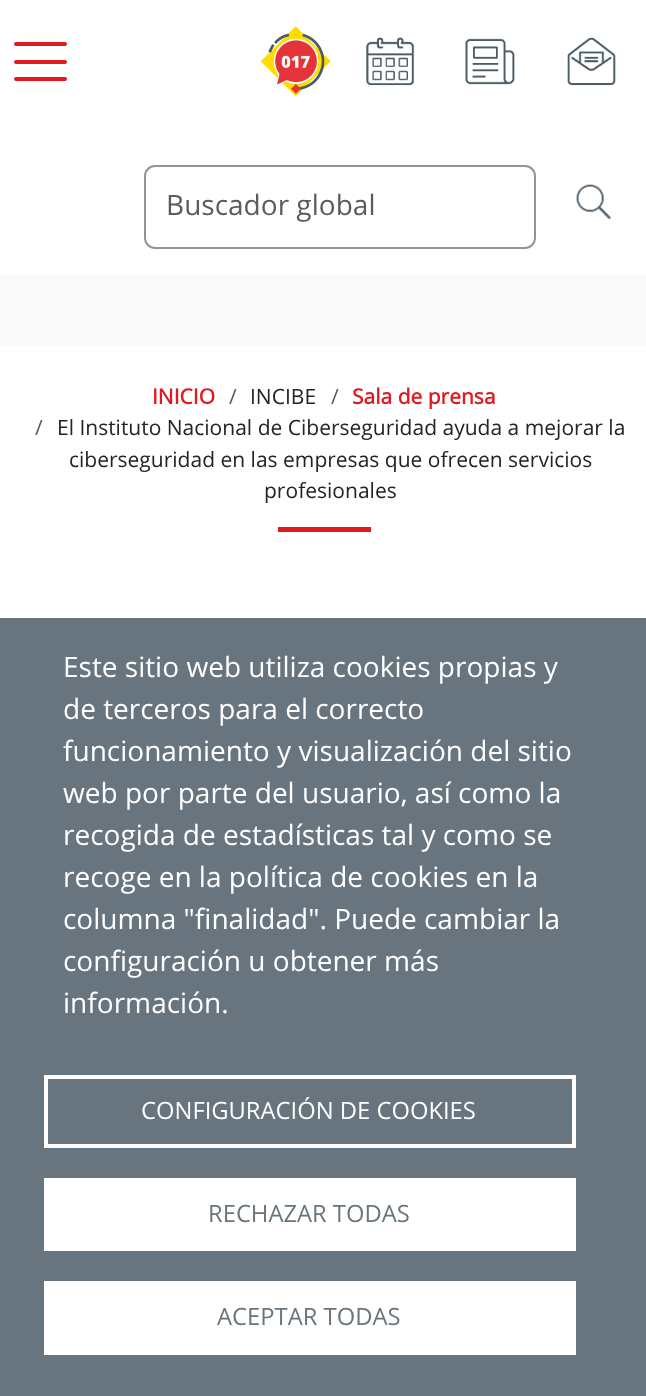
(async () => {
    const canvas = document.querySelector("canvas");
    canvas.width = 646;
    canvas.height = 1396;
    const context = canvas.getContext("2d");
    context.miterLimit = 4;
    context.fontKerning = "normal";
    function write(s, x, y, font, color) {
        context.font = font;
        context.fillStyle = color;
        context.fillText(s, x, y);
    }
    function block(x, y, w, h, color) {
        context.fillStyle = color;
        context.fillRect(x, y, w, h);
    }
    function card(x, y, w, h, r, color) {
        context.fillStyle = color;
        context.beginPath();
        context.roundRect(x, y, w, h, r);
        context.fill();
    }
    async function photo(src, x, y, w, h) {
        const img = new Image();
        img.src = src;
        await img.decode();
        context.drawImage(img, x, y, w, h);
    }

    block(0, 0, 646, 1396, "rgb(250, 250, 250)");
    block(0, 0, 646, 275, "rgb(255, 255, 255)");
    card(14, 42, 53, 4, 2, "rgb(223, 26, 33)");
    card(14, 60, 53, 4, 2, "rgb(223, 26, 33)");
    card(14, 77, 53, 4, 2, "rgb(223, 26, 33)");
    await photo("media/1.png", 261, 26, 70, 70);
    await photo("media/2.png", 366, 37, 49, 49);
    await photo("media/3.png", 465, 38, 50, 47);
    await photo("media/4.png", 567, 37, 49, 49);
    context.beginPath();
    context.roundRect(145, 166, 390, 82, 10);
    context.strokeStyle = "rgb(148, 148, 148)";
    context.lineWidth = 2;
    context.stroke();
    write("Buscador global", 166, 215, "28px Open Sans", "rgb(89, 92, 95)");
    await photo("media/5.png", 575, 184, 36, 36);
    block(0, 345, 646, 273, "rgb(255, 255, 255)");
    write("INICIO", 152, 404, "bold 21px Open Sans", "rgb(223, 26, 33)");
    write("/", 229, 404, "21px Open Sans", "rgb(89, 92, 95)");
    write("INCIBE", 250, 404, "21px Open Sans", "rgb(33, 37, 41)");
    write("/", 331, 404, "21px Open Sans", "rgb(89, 92, 95)");
    write("Sala de prensa", 352, 404, "bold 21px Open Sans", "rgb(223, 26, 33)");
    write("/", 35, 435, "21px Open Sans", "rgb(89, 92, 95)");
    write("El Instituto Nacional de Ciberseguridad ayuda a mejorar la", 57, 435, "21px Open Sans", "rgb(33, 37, 41)");
    write("ciberseguridad en las empresas que ofrecen servicios", 69, 467, "21px Open Sans", "rgb(33, 37, 41)");
    write("profesionales", 264, 498, "21px Open Sans", "rgb(33, 37, 41)");
    block(278, 527, 93, 5, "rgb(223, 26, 33)");
    block(0, 618, 646, 778, "rgb(104, 117, 126)");
    write("Este sitio web utiliza cookies propias y", 63, 677, "28px Open Sans", "rgb(255, 255, 255)");
    write("de terceros para el correcto", 63, 719, "28px Open Sans", "rgb(255, 255, 255)");
    write("funcionamiento y visualización del sitio", 63, 761, "28px Open Sans", "rgb(255, 255, 255)");
    write("web por parte del usuario, así como la", 63, 803, "28px Open Sans", "rgb(255, 255, 255)");
    write("recogida de estadísticas tal y como se", 63, 845, "28px Open Sans", "rgb(255, 255, 255)");
    write("recoge en la política de cookies en la", 63, 887, "28px Open Sans", "rgb(255, 255, 255)");
    write("columna \"finalidad\". Puede cambiar la", 63, 929, "28px Open Sans", "rgb(255, 255, 255)");
    write("configuración u obtener más", 63, 971, "28px Open Sans", "rgb(255, 255, 255)");
    write("información.", 63, 1013, "28px Open Sans", "rgb(255, 255, 255)");
    context.strokeStyle = "rgb(255, 255, 255)";
    context.lineWidth = 4;
    context.strokeRect(46, 1077, 528, 69);
    write("CONFIGURACIÓN DE COOKIES", 141, 1119, "23.75px Open Sans", "rgb(255, 255, 255)");
    block(44, 1178, 532, 73, "rgb(255, 255, 255)");
    write("RECHAZAR TODAS", 208, 1222, "23.75px Open Sans", "rgb(104, 117, 126)");
    block(44, 1281, 532, 74, "rgb(255, 255, 255)");
    write("ACEPTAR TODAS", 217, 1325, "23.75px Open Sans", "rgb(104, 117, 126)");
})();
